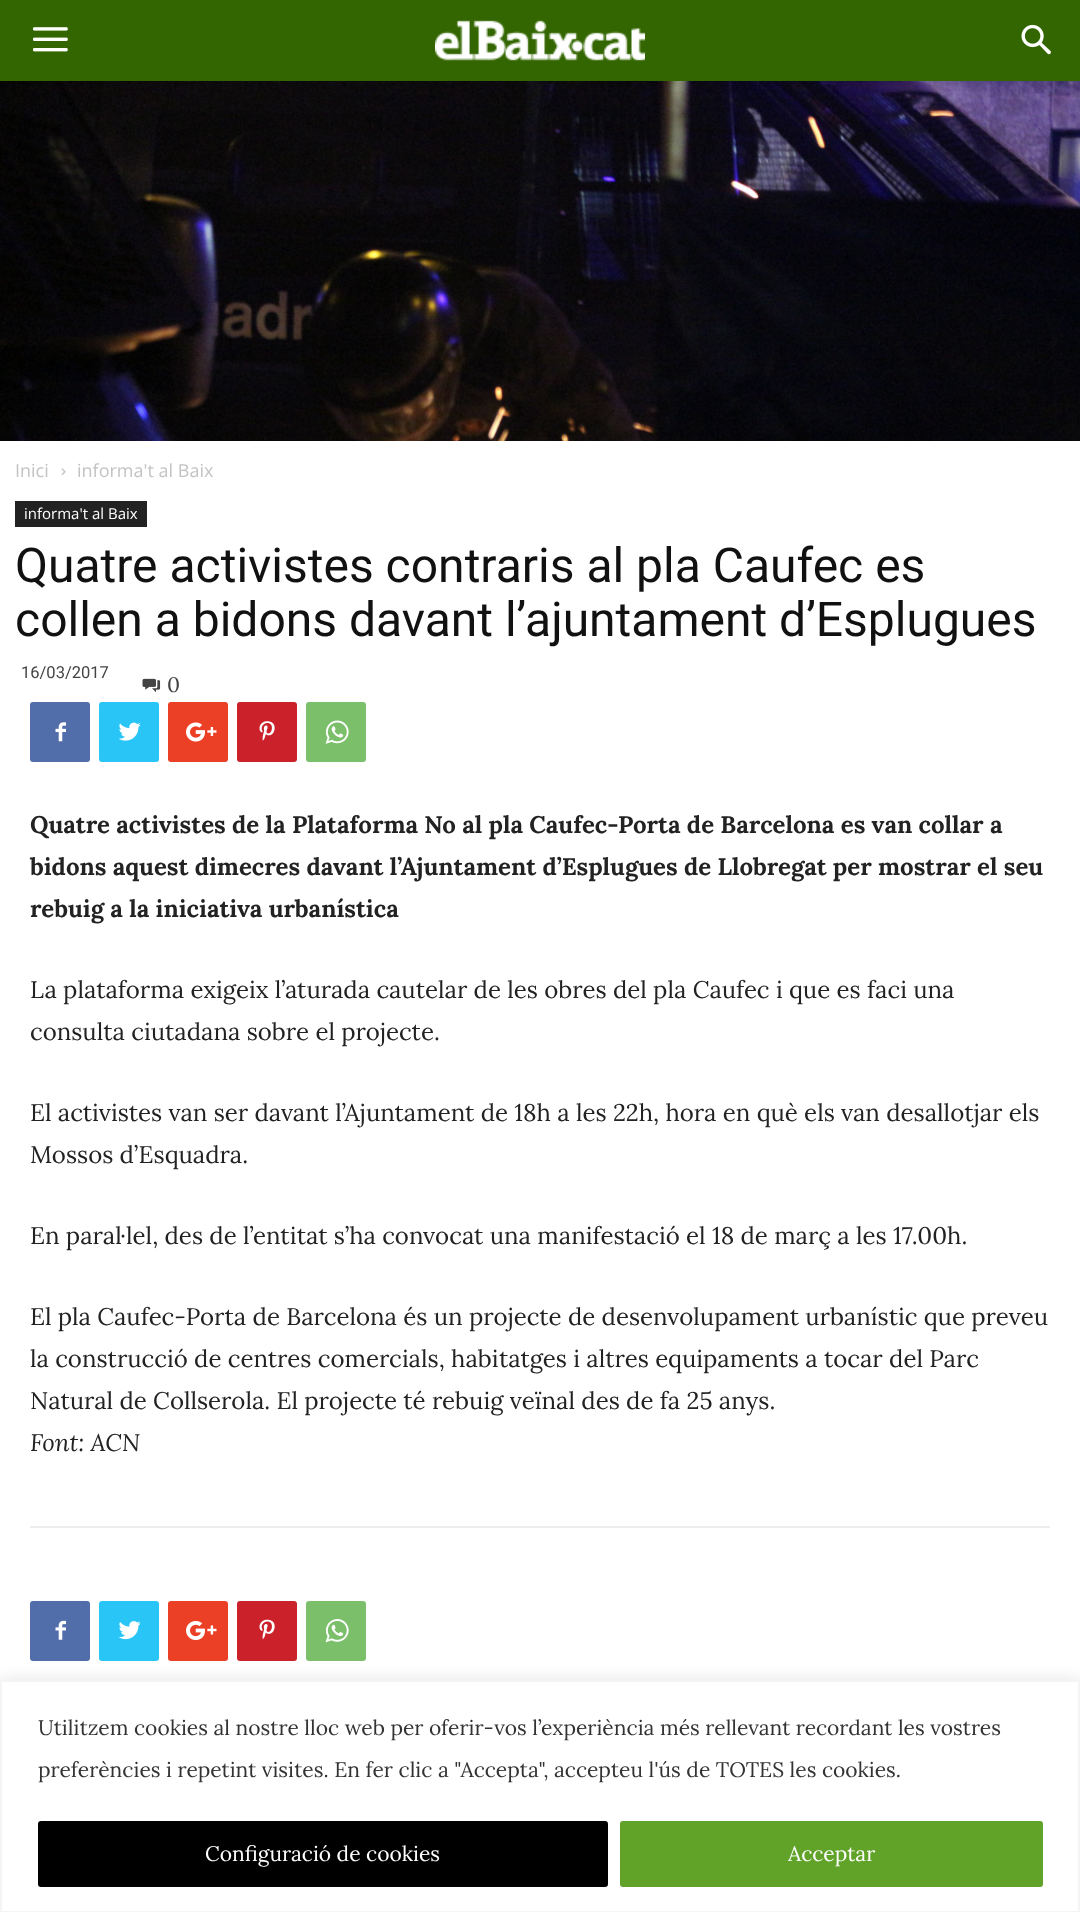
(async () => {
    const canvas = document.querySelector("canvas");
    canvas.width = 1080;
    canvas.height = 1912;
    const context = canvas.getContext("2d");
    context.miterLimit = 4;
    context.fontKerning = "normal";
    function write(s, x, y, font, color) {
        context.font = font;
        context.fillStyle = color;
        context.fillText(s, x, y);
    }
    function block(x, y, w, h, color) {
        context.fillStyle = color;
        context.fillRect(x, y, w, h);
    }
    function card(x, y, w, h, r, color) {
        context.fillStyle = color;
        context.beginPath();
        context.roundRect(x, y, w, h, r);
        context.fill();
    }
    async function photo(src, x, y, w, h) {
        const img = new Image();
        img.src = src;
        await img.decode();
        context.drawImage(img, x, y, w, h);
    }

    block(0, 0, 1080, 1912, "rgb(255, 255, 255)");
    block(0, 0, 1080, 81, "rgb(51, 102, 0)");
    await photo("media/1.png", 33, 27, 35, 25);
    await photo("media/2.png", 435, 20, 210, 41);
    await photo("media/3.png", 1021, 24, 30, 31);
    await photo("media/5.png", 0, 81, 1080, 360);
    await photo("media/4.png", 667, 81, 413, 13);
    write("Inici", 15, 477, "18px Open Sans", "rgb(195, 195, 195)");
    await photo("media/6.png", 61, 468, 5, 8);
    write("informa't al Baix", 77, 477, "18px Open Sans", "rgb(195, 195, 195)");
    block(15, 501, 132, 26, "rgb(34, 34, 34)");
    write("informa't al Baix", 24, 519, "15px Open Sans", "rgb(255, 255, 255)");
    write("Quatre activistes contraris al pla Caufec es", 15, 582, "48px Roboto", "rgb(17, 17, 17)");
    write("collen a bidons davant l’ajuntament d’Esplugues", 15, 636, "48px Roboto", "rgb(17, 17, 17)");
    write("16/03/2017", 21, 678, "16.5px Roboto", "rgb(68, 68, 68)");
    await photo("media/7.png", 142, 678, 19, 15);
    write("0", 167, 692, "21px Lora", "rgb(68, 68, 68)");
    card(30, 702, 60, 60, 3, "rgb(81, 110, 171)");
    await photo("media/8.png", 55, 722, 11, 20);
    card(99, 702, 60, 60, 3, "rgb(41, 197, 246)");
    await photo("media/9.png", 118, 722, 23, 19);
    card(168, 702, 60, 60, 3, "rgb(235, 64, 38)");
    await photo("media/10.png", 186, 722, 31, 20);
    card(237, 702, 60, 60, 3, "rgb(202, 33, 42)");
    await photo("media/11.png", 259, 721, 16, 20);
    card(306, 702, 60, 60, 3, "rgb(123, 191, 106)");
    await photo("media/12.png", 325, 720, 24, 24);
    write("Quatre activistes de la Plataforma No al pla Caufec-Porta de Barcelona es van collar a", 30, 833, "bold 24px Lora", "rgb(34, 34, 34)");
    write("bidons aquest dimecres davant l’Ajuntament d’Esplugues de Llobregat per mostrar el seu", 30, 875, "bold 24px Lora", "rgb(34, 34, 34)");
    write("rebuig a la iniciativa urbanística", 30, 917, "bold 24px Lora", "rgb(34, 34, 34)");
    write("La plataforma exigeix l’aturada cautelar de les obres del pla Caufec i que es faci una", 30, 998, "24px Lora", "rgb(34, 34, 34)");
    write("consulta ciutadana sobre el projecte.", 30, 1040, "24px Lora", "rgb(34, 34, 34)");
    write("El activistes van ser davant l’Ajuntament de 18h a les 22h, hora en què els van desallotjar els", 30, 1121, "24px Lora", "rgb(34, 34, 34)");
    write("Mossos d’Esquadra.", 30, 1163, "24px Lora", "rgb(34, 34, 34)");
    write("En paral·lel, des de l’entitat s’ha convocat una manifestació el 18 de març a les 17.00h.", 30, 1244, "24px Lora", "rgb(34, 34, 34)");
    write("El pla Caufec-Porta de Barcelona és un projecte de desenvolupament urbanístic que preveu", 30, 1325, "24px Lora", "rgb(34, 34, 34)");
    write("la construcció de centres comercials, habitatges i altres equipaments a tocar del Parc", 30, 1367, "24px Lora", "rgb(34, 34, 34)");
    write("Natural de Collserola. El projecte té rebuig veïnal des de fa 25 anys.", 30, 1409, "24px Lora", "rgb(34, 34, 34)");
    write("Font: ACN", 30, 1451, "italic 24px Lora", "rgb(34, 34, 34)");
    block(30, 1526, 1020, 2, "rgb(237, 237, 237)");
    card(30, 1601, 60, 60, 3, "rgb(81, 110, 171)");
    await photo("media/13.png", 55, 1620, 11, 20);
    card(99, 1601, 60, 60, 3, "rgb(41, 197, 246)");
    await photo("media/14.png", 118, 1621, 23, 19);
    card(168, 1601, 60, 60, 3, "rgb(235, 64, 38)");
    await photo("media/15.png", 186, 1621, 31, 19);
    card(237, 1601, 60, 60, 3, "rgb(202, 33, 42)");
    await photo("media/16.png", 259, 1619, 16, 21);
    card(306, 1601, 60, 60, 3, "rgb(123, 191, 106)");
    await photo("media/17.png", 325, 1619, 24, 24);
    context.fillStyle = "rgba(172, 171, 171, 0.3)";
    context.filter = "blur(7.5px)";
    context.beginPath();
    context.rect(0, 1679, 1080, 232);
    context.fill();
    context.filter = "none";
    context.fillStyle = "rgb(255, 255, 255)";
    context.beginPath();
    context.rect(1, 1681, 1078, 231);
    context.fill();
    context.strokeStyle = "rgb(244, 244, 244)";
    context.lineWidth = 2;
    context.stroke();
    write("Utilitzem cookies al nostre lloc web per oferir-vos l’experiència més rellevant recordant les vostres", 38, 1735, "21px Lora", "rgb(51, 51, 51)");
    write("preferències i repetint visites. En fer clic a \"Accepta\", accepteu l'ús de TOTES les cookies.", 38, 1777, "21px Lora", "rgb(51, 51, 51)");
    context.fillStyle = "rgb(0, 0, 0)";
    context.beginPath();
    context.roundRect(39.5, 1822.5, 567, 63, 1.5);
    context.fill();
    context.strokeStyle = "rgb(0, 0, 0)";
    context.lineWidth = 3;
    context.stroke();
    write("Configuració de cookies", 205, 1861, "21px Lora", "rgb(255, 255, 255)");
    context.fillStyle = "rgb(97, 162, 41)";
    context.beginPath();
    context.roundRect(621.5, 1822.5, 420, 63, 1.5);
    context.fill();
    context.strokeStyle = "rgb(97, 162, 41)";
    context.stroke();
    write("Acceptar", 788, 1861, "21px Lora", "rgb(255, 255, 255)");
})();
